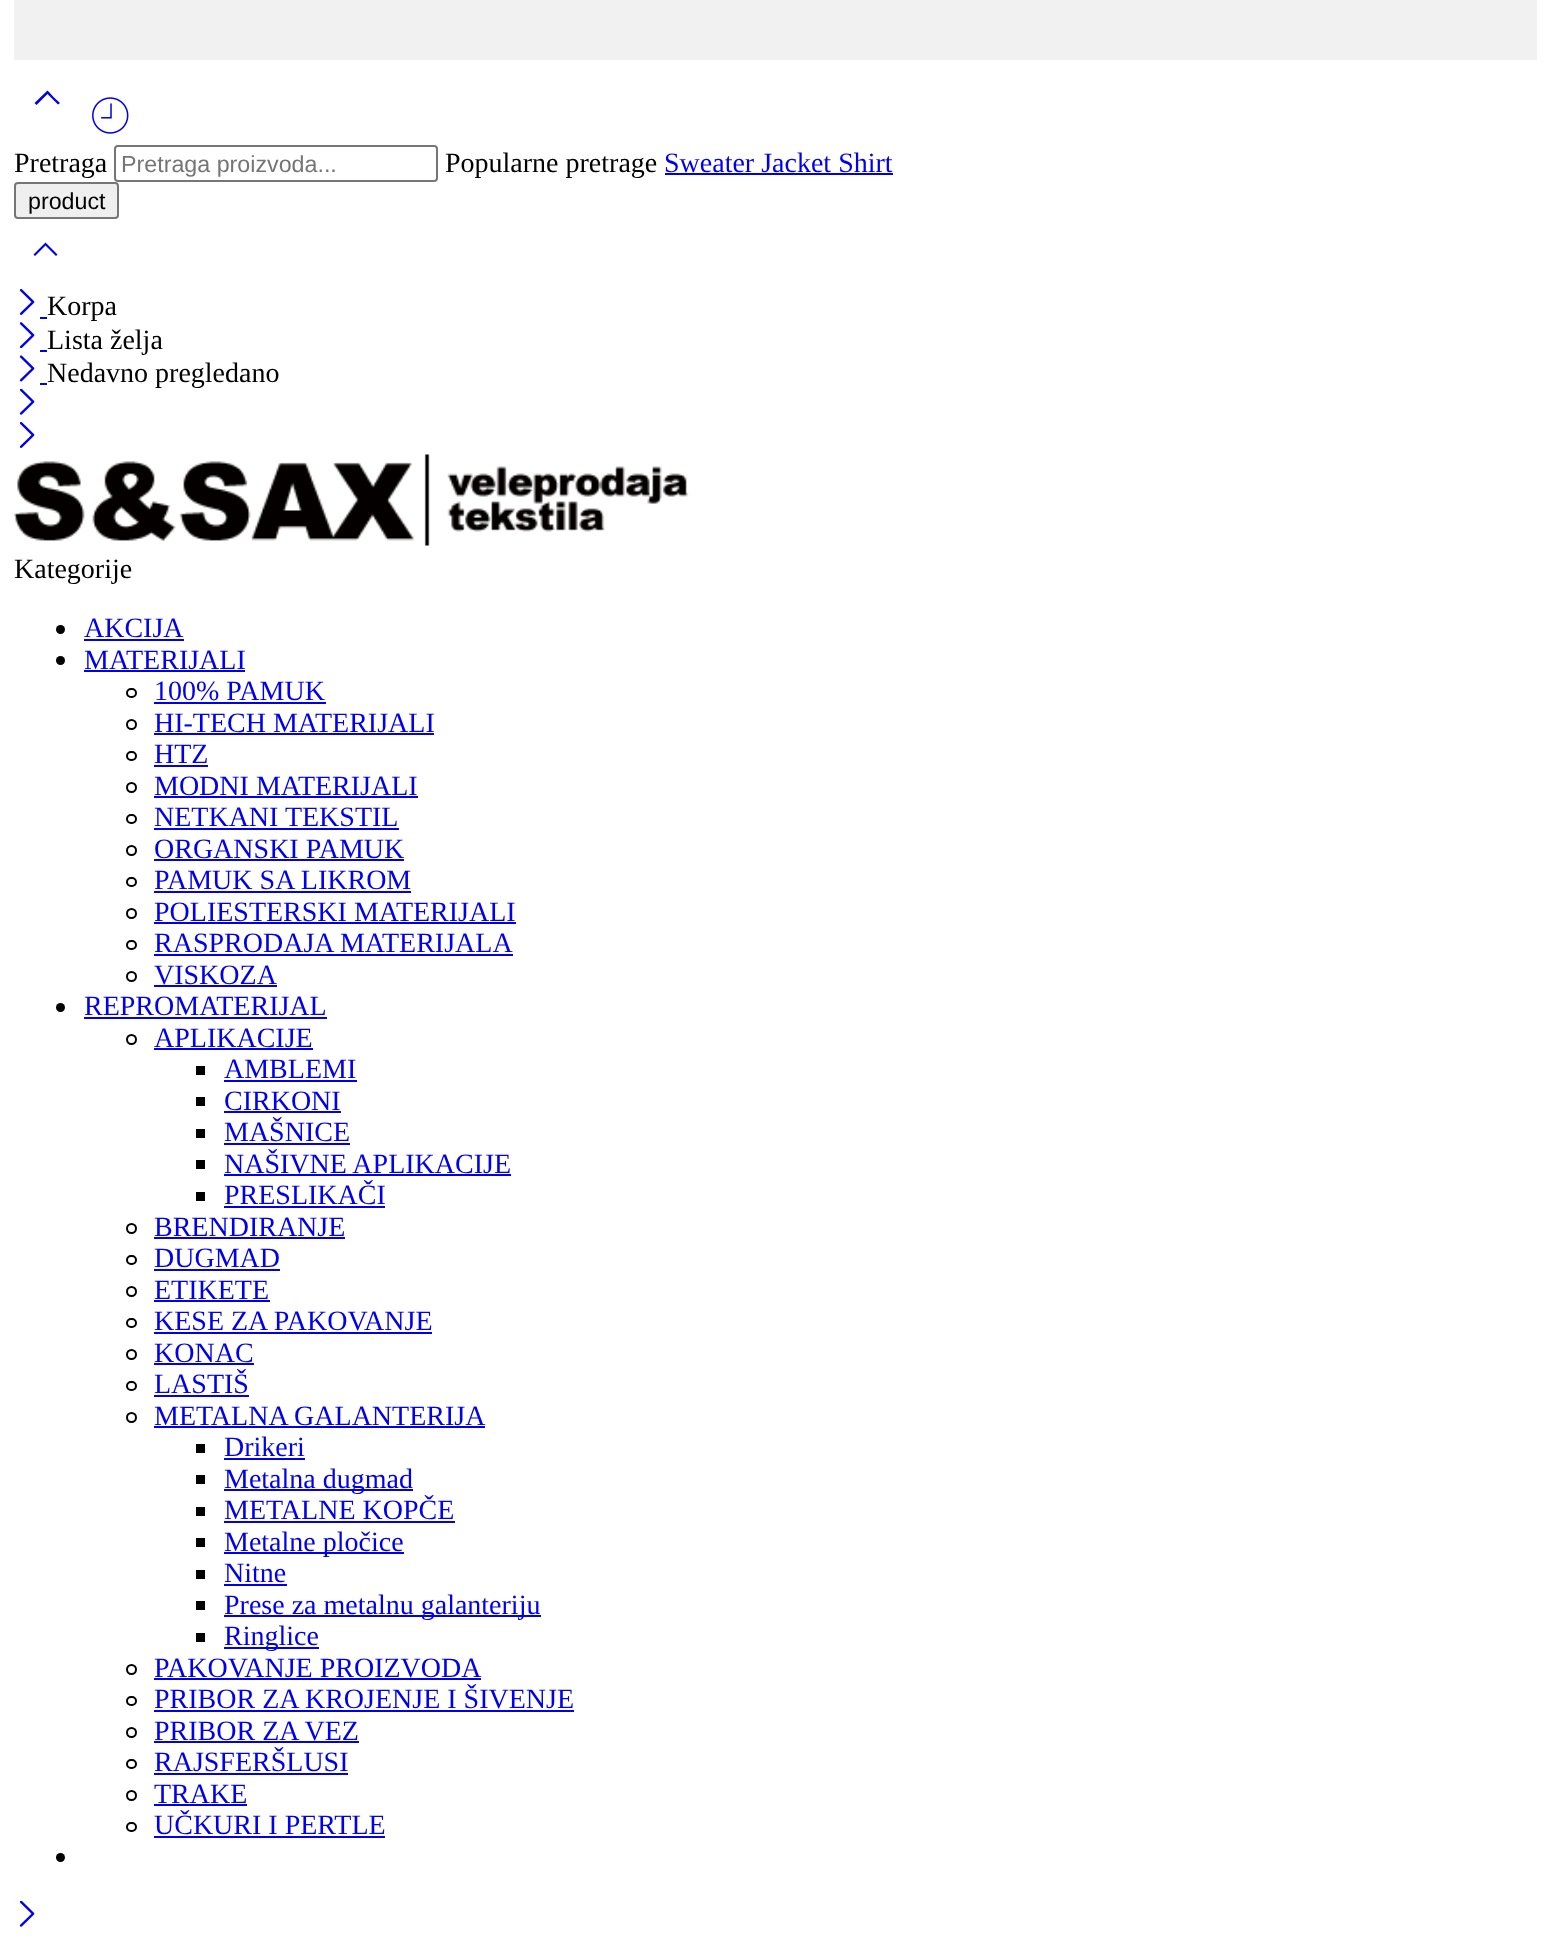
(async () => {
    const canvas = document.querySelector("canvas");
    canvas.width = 1549;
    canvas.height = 1947;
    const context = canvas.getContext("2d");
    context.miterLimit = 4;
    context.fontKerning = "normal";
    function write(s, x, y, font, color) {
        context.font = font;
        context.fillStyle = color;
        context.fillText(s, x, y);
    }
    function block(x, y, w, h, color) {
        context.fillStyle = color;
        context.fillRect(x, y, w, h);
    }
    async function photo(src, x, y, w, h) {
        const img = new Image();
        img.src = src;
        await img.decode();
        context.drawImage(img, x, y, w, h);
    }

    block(0, 0, 1549, 1947, "rgb(255, 255, 255)");
    block(14, 0, 1523, 60, "rgb(241, 241, 241)");
    context.fillStyle = "rgb(0, 0, 238)";
    context.beginPath();
    context.moveTo(49, 92);
    context.lineTo(47.5, 90.5);
    context.lineTo(34.5, 103);
    context.lineTo(36.5, 105);
    context.lineTo(47.5, 94);
    context.lineTo(58, 104.5);
    context.lineTo(60, 103);
    context.lineTo(53.5, 97);
    context.closePath();
    context.fill();
    await photo("media/1.png", 92, 97, 37, 37);
    write("Pretraga", 14, 172, "28px Liberation Serif", "rgb(0, 0, 0)");
    context.beginPath();
    context.roundRect(115, 146, 322, 35, 3);
    context.strokeStyle = "rgb(118, 118, 118)";
    context.lineWidth = 2;
    context.stroke();
    write("Pretraga proizvoda...", 121, 172, "23.25px Liberation Sans", "rgb(117, 117, 117)");
    write("Popularne pretrage", 445, 172, "28px Liberation Serif", "rgb(0, 0, 0)");
    write("Sweater Jacket Shirt", 664, 172, "28px Liberation Serif", "rgb(0, 0, 238)");
    block(665, 173, 228, 2, "rgb(0, 0, 238)");
    context.fillStyle = "rgb(239, 239, 239)";
    context.beginPath();
    context.roundRect(15, 183, 103, 35, 3);
    context.fill();
    context.stroke();
    write("product", 28, 209, "23.25px Liberation Sans", "rgb(0, 0, 0)");
    context.fillStyle = "rgb(0, 0, 238)";
    context.beginPath();
    context.moveTo(47, 244);
    context.lineTo(45.5, 242.5);
    context.lineTo(33.5, 254.5);
    context.lineTo(35, 256);
    context.lineTo(45.5, 245.5);
    context.lineTo(56, 256);
    context.lineTo(57.5, 254.5);
    context.lineTo(51.5, 248.5);
    context.closePath();
    context.fill();
    await photo("media/2.png", 19, 289, 16, 26);
    block(40, 317, 7, 2, "rgb(0, 0, 238)");
    write("Korpa", 47, 315, "28px Liberation Serif", "rgb(0, 0, 0)");
    await photo("media/3.png", 19, 322, 16, 26);
    block(40, 350, 7, 2, "rgb(0, 0, 238)");
    write("Lista želja", 47, 349, "28px Liberation Serif", "rgb(0, 0, 0)");
    await photo("media/4.png", 19, 355, 16, 27);
    block(40, 383, 7, 2, "rgb(0, 0, 238)");
    write("Nedavno pregledano", 47, 382, "28px Liberation Serif", "rgb(0, 0, 0)");
    await photo("media/5.png", 19, 389, 16, 26);
    await photo("media/2.png", 19, 422, 16, 26);
    await photo("media/6.png", 14, 454, 675, 92);
    write("Kategorije", 14, 578, "28px Liberation Serif", "rgb(0, 0, 0)");
    context.beginPath();
    context.arc(60.5, 629.5, 4.5, 0, Math.PI * 2);
    context.fill();
    write("AKCIJA", 84, 637, "28px Liberation Serif", "rgb(0, 0, 238)");
    block(84, 639, 100, 2, "rgb(0, 0, 238)");
    context.fillStyle = "rgb(0, 0, 0)";
    context.beginPath();
    context.arc(60.5, 660.5, 4.5, 0, Math.PI * 2);
    context.fill();
    write("MATERIJALI", 84, 669, "28px Liberation Serif", "rgb(0, 0, 238)");
    block(84, 670, 161, 2, "rgb(0, 0, 238)");
    context.beginPath();
    context.roundRect(127, 689, 9, 8, 4);
    context.strokeStyle = "rgb(0, 0, 0)";
    context.stroke();
    write("100% PAMUK", 154, 700, "28px Liberation Serif", "rgb(0, 0, 238)");
    block(154, 702, 172, 2, "rgb(0, 0, 238)");
    context.beginPath();
    context.arc(131.5, 724.5, 4.5, 0, Math.PI * 2);
    context.stroke();
    write("HI-TECH MATERIJALI", 154, 732, "28px Liberation Serif", "rgb(0, 0, 238)");
    block(154, 733, 280, 2, "rgb(0, 0, 238)");
    context.beginPath();
    context.roundRect(127, 752, 9, 8, 4);
    context.stroke();
    write("HTZ", 154, 763, "28px Liberation Serif", "rgb(0, 0, 238)");
    block(154, 765, 54, 2, "rgb(0, 0, 238)");
    context.beginPath();
    context.arc(131.5, 787.5, 4.5, 0, Math.PI * 2);
    context.stroke();
    write("MODNI MATERIJALI", 154, 795, "28px Liberation Serif", "rgb(0, 0, 238)");
    block(154, 796, 264, 2, "rgb(0, 0, 238)");
    context.beginPath();
    context.roundRect(127, 815, 9, 8, 4);
    context.stroke();
    write("NETKANI TEKSTIL", 154, 826, "28px Liberation Serif", "rgb(0, 0, 238)");
    block(154, 828, 245, 2, "rgb(0, 0, 238)");
    context.beginPath();
    context.arc(131.5, 850.5, 4.5, 0, Math.PI * 2);
    context.stroke();
    write("ORGANSKI PAMUK", 154, 858, "28px Liberation Serif", "rgb(0, 0, 238)");
    block(154, 859, 250, 2, "rgb(0, 0, 238)");
    context.beginPath();
    context.roundRect(127, 878, 9, 8, 4);
    context.stroke();
    write("PAMUK SA LIKROM", 154, 889, "28px Liberation Serif", "rgb(0, 0, 238)");
    block(154, 891, 257, 2, "rgb(0, 0, 238)");
    context.beginPath();
    context.arc(131.5, 913.5, 4.5, 0, Math.PI * 2);
    context.stroke();
    write("POLIESTERSKI MATERIJALI", 154, 921, "28px Liberation Serif", "rgb(0, 0, 238)");
    block(154, 922, 362, 2, "rgb(0, 0, 238)");
    context.beginPath();
    context.roundRect(127, 941, 9, 8, 4);
    context.stroke();
    write("RASPRODAJA MATERIJALA", 154, 952, "28px Liberation Serif", "rgb(0, 0, 238)");
    block(154, 954, 359, 2, "rgb(0, 0, 238)");
    context.beginPath();
    context.arc(131.5, 976.5, 4.5, 0, Math.PI * 2);
    context.stroke();
    write("VISKOZA", 154, 984, "28px Liberation Serif", "rgb(0, 0, 238)");
    block(154, 985, 123, 2, "rgb(0, 0, 238)");
    context.fillStyle = "rgb(0, 0, 0)";
    context.beginPath();
    context.arc(60.5, 1007.5, 4.5, 0, Math.PI * 2);
    context.fill();
    write("REPROMATERIJAL", 84, 1015, "28px Liberation Serif", "rgb(0, 0, 238)");
    block(84, 1017, 243, 2, "rgb(0, 0, 238)");
    context.beginPath();
    context.arc(131.5, 1039.5, 4.5, 0, Math.PI * 2);
    context.stroke();
    write("APLIKACIJE", 154, 1047, "28px Liberation Serif", "rgb(0, 0, 238)");
    block(154, 1048, 159, 2, "rgb(0, 0, 238)");
    block(196, 1066, 9, 9, "rgb(0, 0, 0)");
    write("AMBLEMI", 224, 1078, "28px Liberation Serif", "rgb(0, 0, 238)");
    block(224, 1080, 133, 2, "rgb(0, 0, 238)");
    block(196, 1097, 9, 9, "rgb(0, 0, 0)");
    write("CIRKONI", 224, 1110, "28px Liberation Serif", "rgb(0, 0, 238)");
    block(224, 1111, 117, 2, "rgb(0, 0, 238)");
    block(196, 1129, 9, 9, "rgb(0, 0, 0)");
    write("MAŠNICE", 224, 1141, "28px Liberation Serif", "rgb(0, 0, 238)");
    block(224, 1143, 126, 2, "rgb(0, 0, 238)");
    block(196, 1160, 9, 9, "rgb(0, 0, 0)");
    write("NAŠIVNE APLIKACIJE", 224, 1173, "28px Liberation Serif", "rgb(0, 0, 238)");
    block(224, 1174, 287, 2, "rgb(0, 0, 238)");
    block(196, 1192, 9, 9, "rgb(0, 0, 0)");
    write("PRESLIKAČI", 224, 1204, "28px Liberation Serif", "rgb(0, 0, 238)");
    block(224, 1206, 161, 2, "rgb(0, 0, 238)");
    context.beginPath();
    context.arc(131.5, 1228.5, 4.5, 0, Math.PI * 2);
    context.stroke();
    write("BRENDIRANJE", 154, 1236, "28px Liberation Serif", "rgb(0, 0, 238)");
    block(154, 1237, 191, 2, "rgb(0, 0, 238)");
    context.beginPath();
    context.roundRect(127, 1256, 9, 8, 4);
    context.stroke();
    write("DUGMAD", 154, 1267, "28px Liberation Serif", "rgb(0, 0, 238)");
    block(154, 1269, 126, 2, "rgb(0, 0, 238)");
    context.beginPath();
    context.arc(131.5, 1291.5, 4.5, 0, Math.PI * 2);
    context.stroke();
    write("ETIKETE", 154, 1299, "28px Liberation Serif", "rgb(0, 0, 238)");
    block(154, 1300, 116, 2, "rgb(0, 0, 238)");
    context.beginPath();
    context.roundRect(127, 1319, 9, 8, 4);
    context.stroke();
    write("KESE ZA PAKOVANJE", 154, 1330, "28px Liberation Serif", "rgb(0, 0, 238)");
    block(154, 1332, 278, 2, "rgb(0, 0, 238)");
    context.beginPath();
    context.arc(131.5, 1354.5, 4.5, 0, Math.PI * 2);
    context.stroke();
    write("KONAC", 154, 1362, "28px Liberation Serif", "rgb(0, 0, 238)");
    block(154, 1363, 100, 2, "rgb(0, 0, 238)");
    context.beginPath();
    context.roundRect(127, 1382, 9, 8, 4);
    context.stroke();
    write("LASTIŠ", 154, 1393, "28px Liberation Serif", "rgb(0, 0, 238)");
    block(154, 1395, 95, 2, "rgb(0, 0, 238)");
    context.beginPath();
    context.arc(131.5, 1417.5, 4.5, 0, Math.PI * 2);
    context.stroke();
    write("METALNA GALANTERIJA", 154, 1425, "28px Liberation Serif", "rgb(0, 0, 238)");
    block(154, 1426, 331, 2, "rgb(0, 0, 238)");
    block(196, 1444, 9, 9, "rgb(0, 0, 0)");
    write("Drikeri", 224, 1456, "28px Liberation Serif", "rgb(0, 0, 238)");
    block(224, 1458, 81, 2, "rgb(0, 0, 238)");
    block(196, 1475, 9, 9, "rgb(0, 0, 0)");
    block(224, 1489, 189, 2, "rgb(0, 0, 238)");
    write("Metalna dugmad", 224, 1488, "28px Liberation Serif", "rgb(0, 0, 238)");
    block(196, 1507, 9, 9, "rgb(0, 0, 0)");
    write("METALNE KOPČE", 224, 1519, "28px Liberation Serif", "rgb(0, 0, 238)");
    block(224, 1521, 231, 2, "rgb(0, 0, 238)");
    block(196, 1538, 9, 9, "rgb(0, 0, 0)");
    block(224, 1552, 180, 2, "rgb(0, 0, 238)");
    write("Metalne pločice", 224, 1551, "28px Liberation Serif", "rgb(0, 0, 238)");
    block(196, 1570, 9, 9, "rgb(0, 0, 0)");
    write("Nitne", 224, 1582, "28px Liberation Serif", "rgb(0, 0, 238)");
    block(224, 1584, 63, 2, "rgb(0, 0, 238)");
    block(196, 1601, 9, 9, "rgb(0, 0, 0)");
    block(224, 1615, 317, 2, "rgb(0, 0, 238)");
    write("Prese za metalnu galanteriju", 224, 1614, "28px Liberation Serif", "rgb(0, 0, 238)");
    block(196, 1633, 9, 9, "rgb(0, 0, 0)");
    block(224, 1647, 95, 2, "rgb(0, 0, 238)");
    write("Ringlice", 224, 1645, "28px Liberation Serif", "rgb(0, 0, 238)");
    context.beginPath();
    context.arc(131.5, 1669.5, 4.5, 0, Math.PI * 2);
    context.stroke();
    write("PAKOVANJE PROIZVODA", 154, 1677, "28px Liberation Serif", "rgb(0, 0, 238)");
    block(154, 1678, 327, 2, "rgb(0, 0, 238)");
    context.beginPath();
    context.roundRect(127, 1697, 9, 8, 4);
    context.stroke();
    write("PRIBOR ZA KROJENJE I ŠIVENJE", 154, 1708, "28px Liberation Serif", "rgb(0, 0, 238)");
    block(154, 1710, 420, 2, "rgb(0, 0, 238)");
    context.beginPath();
    context.arc(131.5, 1732.5, 4.5, 0, Math.PI * 2);
    context.stroke();
    write("PRIBOR ZA VEZ", 154, 1740, "28px Liberation Serif", "rgb(0, 0, 238)");
    block(154, 1741, 205, 2, "rgb(0, 0, 238)");
    context.beginPath();
    context.roundRect(127, 1760, 9, 8, 4);
    context.stroke();
    write("RAJSFERŠLUSI", 154, 1771, "28px Liberation Serif", "rgb(0, 0, 238)");
    block(154, 1773, 194, 2, "rgb(0, 0, 238)");
    context.beginPath();
    context.arc(131.5, 1795.5, 4.5, 0, Math.PI * 2);
    context.stroke();
    write("TRAKE", 154, 1803, "28px Liberation Serif", "rgb(0, 0, 238)");
    block(154, 1804, 93, 2, "rgb(0, 0, 238)");
    context.beginPath();
    context.roundRect(127, 1823, 9, 8, 4);
    context.stroke();
    write("UČKURI I PERTLE", 154, 1834, "28px Liberation Serif", "rgb(0, 0, 238)");
    block(154, 1836, 231, 2, "rgb(0, 0, 238)");
    context.fillStyle = "rgb(0, 0, 0)";
    context.beginPath();
    context.arc(60.5, 1857.5, 4.5, 0, Math.PI * 2);
    context.fill();
    await photo("media/5.png", 19, 1901, 16, 26);
})();
